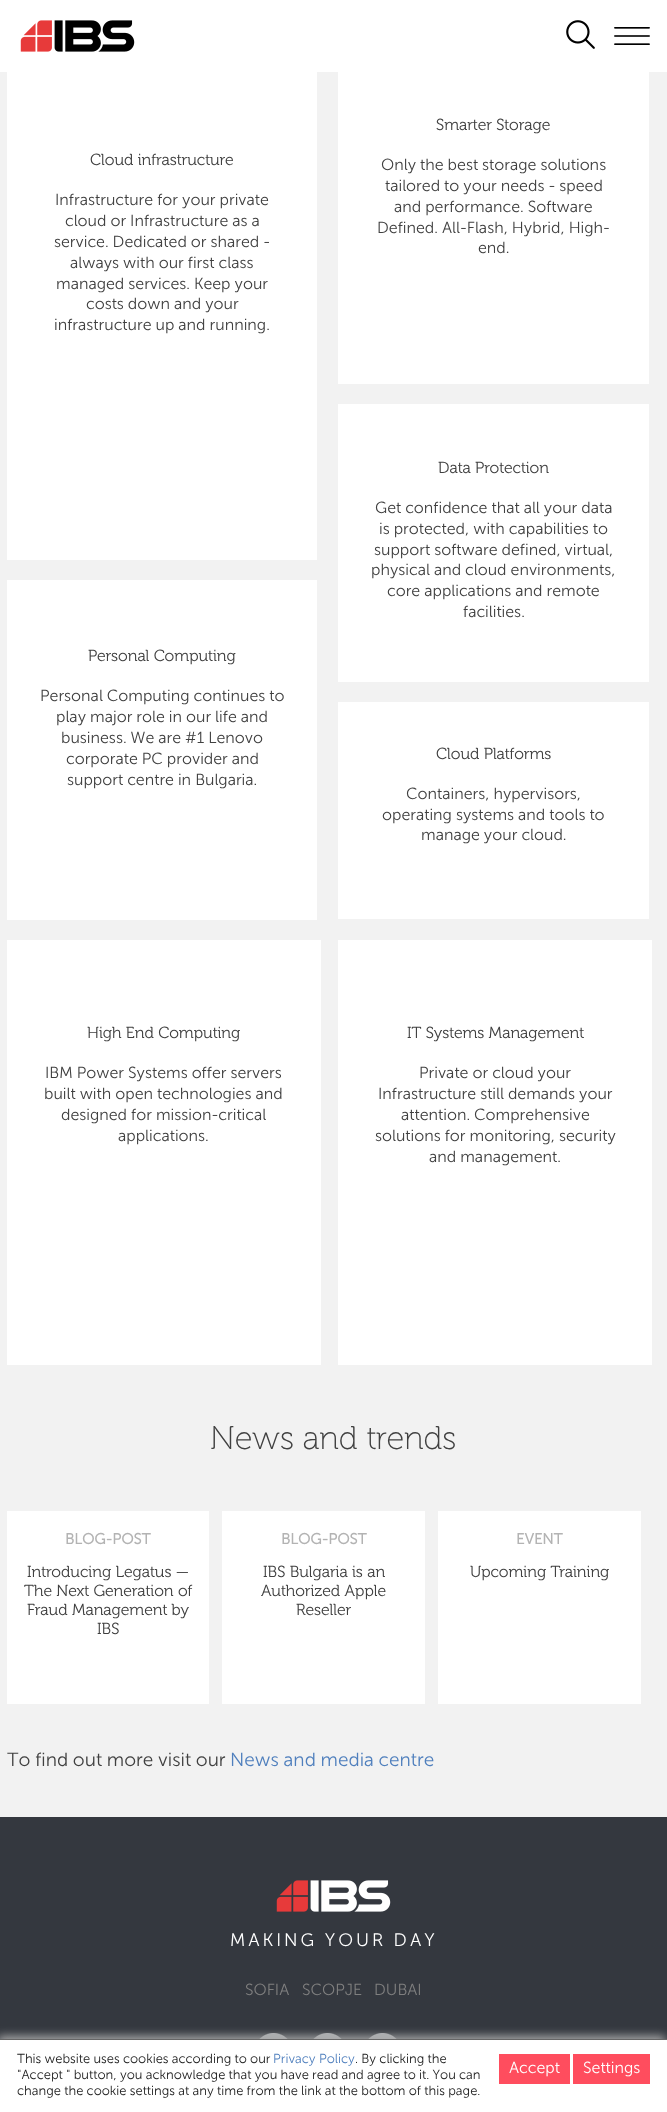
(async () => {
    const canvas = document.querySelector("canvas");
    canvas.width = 667;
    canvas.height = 2112;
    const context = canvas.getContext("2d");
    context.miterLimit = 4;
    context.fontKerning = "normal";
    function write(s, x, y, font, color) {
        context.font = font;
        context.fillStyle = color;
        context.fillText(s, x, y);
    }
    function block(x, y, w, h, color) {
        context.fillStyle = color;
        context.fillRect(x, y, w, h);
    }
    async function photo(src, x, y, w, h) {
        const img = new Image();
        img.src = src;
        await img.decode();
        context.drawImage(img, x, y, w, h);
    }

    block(0, 0, 667, 2112, "rgb(52, 56, 63)");
    block(0, 0, 667, 72, "rgb(255, 255, 255)");
    await photo("media/1.png", 566, 20, 29, 29);
    await photo("media/2.png", 614, 27, 36, 18);
    await photo("media/3.png", 20, 20, 115, 32);
    block(0, 72, 667, 1745, "rgb(242, 242, 242)");
    block(7, 72, 310, 488, "rgb(255, 255, 255)");
    write("Cloud infrastructure", 90, 165, "16px 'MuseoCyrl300'", "rgb(64, 64, 64)");
    write("Infrastructure for your private", 55, 205, "16px 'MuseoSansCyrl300'", "rgb(64, 64, 64)");
    write("cloud or Infrastructure as a", 65, 226, "16px 'MuseoSansCyrl300'", "rgb(64, 64, 64)");
    write("service. Dedicated or shared -", 54, 247, "16px 'MuseoSansCyrl300'", "rgb(64, 64, 64)");
    write("always with our first class", 70, 268, "16px 'MuseoSansCyrl300'", "rgb(64, 64, 64)");
    write("managed services. Keep your", 56, 289, "16px 'MuseoSansCyrl300'", "rgb(64, 64, 64)");
    write("costs down and your", 86, 309, "16px 'MuseoSansCyrl300'", "rgb(64, 64, 64)");
    write("infrastructure up and running.", 54, 330, "16px 'MuseoSansCyrl300'", "rgb(64, 64, 64)");
    block(7, 580, 310, 340, "rgb(255, 255, 255)");
    write("Personal Computing", 88, 661, "16px 'MuseoCyrl300'", "rgb(64, 64, 64)");
    write("Personal Computing continues to", 40, 701, "16px 'MuseoSansCyrl300'", "rgb(64, 64, 64)");
    write("play major role in our life and", 56, 722, "16px 'MuseoSansCyrl300'", "rgb(64, 64, 64)");
    write("business. We are #1 Lenovo", 61, 743, "16px 'MuseoSansCyrl300'", "rgb(64, 64, 64)");
    write("corporate PC provider and", 66, 764, "16px 'MuseoSansCyrl300'", "rgb(64, 64, 64)");
    write("support centre in Bulgaria.", 67, 785, "16px 'MuseoSansCyrl300'", "rgb(64, 64, 64)");
    block(338, 72, 311, 312, "rgb(255, 255, 255)");
    write("Smarter Storage", 436, 130, "16px 'MuseoCyrl300'", "rgb(64, 64, 64)");
    write("Only the best storage solutions", 381, 170, "16px 'MuseoSansCyrl300'", "rgb(64, 64, 64)");
    write("tailored to your needs - speed", 385, 191, "16px 'MuseoSansCyrl300'", "rgb(64, 64, 64)");
    write("and performance. Software", 394, 212, "16px 'MuseoSansCyrl300'", "rgb(64, 64, 64)");
    write("Defined. All-Flash, Hybrid, High-", 377, 233, "16px 'MuseoSansCyrl300'", "rgb(64, 64, 64)");
    write("end.", 478, 253, "16px 'MuseoSansCyrl300'", "rgb(64, 64, 64)");
    block(338, 404, 311, 278, "rgb(255, 255, 255)");
    write("Data Protection", 438, 473, "16px 'MuseoCyrl300'", "rgb(64, 64, 64)");
    write("Get confidence that all your data", 375, 513, "16px 'MuseoSansCyrl300'", "rgb(64, 64, 64)");
    write("is protected, with capabilities to", 379, 534, "16px 'MuseoSansCyrl300'", "rgb(64, 64, 64)");
    write("support software defined, virtual,", 374, 555, "16px 'MuseoSansCyrl300'", "rgb(64, 64, 64)");
    write("physical and cloud environments,", 371, 575, "16px 'MuseoSansCyrl300'", "rgb(64, 64, 64)");
    write("core applications and remote", 387, 596, "16px 'MuseoSansCyrl300'", "rgb(64, 64, 64)");
    write("facilities.", 463, 617, "16px 'MuseoSansCyrl300'", "rgb(64, 64, 64)");
    block(338, 702, 311, 217, "rgb(255, 255, 255)");
    write("Cloud Platforms", 436, 759, "16px 'MuseoCyrl300'", "rgb(64, 64, 64)");
    write("Containers, hypervisors,", 406, 799, "16px 'MuseoSansCyrl300'", "rgb(64, 64, 64)");
    write("operating systems and tools to", 382, 820, "16px 'MuseoSansCyrl300'", "rgb(64, 64, 64)");
    write("manage your cloud.", 421, 840, "16px 'MuseoSansCyrl300'", "rgb(64, 64, 64)");
    block(7, 940, 314, 425, "rgb(255, 255, 255)");
    write("High End Computing", 87, 1038, "16px 'MuseoCyrl300'", "rgb(64, 64, 64)");
    write("IBM Power Systems offer servers", 45, 1078, "16px 'MuseoSansCyrl300'", "rgb(64, 64, 64)");
    write("built with open technologies and", 44, 1099, "16px 'MuseoSansCyrl300'", "rgb(64, 64, 64)");
    write("designed for mission-critical", 61, 1120, "16px 'MuseoSansCyrl300'", "rgb(64, 64, 64)");
    write("applications.", 118, 1141, "16px 'MuseoSansCyrl300'", "rgb(64, 64, 64)");
    block(338, 940, 314, 425, "rgb(255, 255, 255)");
    write("IT Systems Management", 407, 1038, "16px 'MuseoCyrl300'", "rgb(64, 64, 64)");
    write("Private or cloud your", 419, 1078, "16px 'MuseoSansCyrl300'", "rgb(64, 64, 64)");
    write("Infrastructure still demands your", 378, 1099, "16px 'MuseoSansCyrl300'", "rgb(64, 64, 64)");
    write("attention. Comprehensive", 401, 1120, "16px 'MuseoSansCyrl300'", "rgb(64, 64, 64)");
    write("solutions for monitoring, security", 375, 1141, "16px 'MuseoSansCyrl300'", "rgb(64, 64, 64)");
    write("and management.", 429, 1162, "16px 'MuseoSansCyrl300'", "rgb(64, 64, 64)");
    write("News and trends", 210, 1449, "33px 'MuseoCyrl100'", "rgb(64, 64, 64)");
    block(7, 1511, 202, 193, "rgb(255, 255, 255)");
    write("BLOG-POST", 65, 1544, "bold 15px 'MuseoSansCyrl300'", "rgb(179, 179, 179)");
    write("Introducing Legatus —", 27, 1577, "16px 'MuseoCyrl300'", "rgb(64, 64, 64)");
    write("The Next Generation of", 24, 1596, "16px 'MuseoCyrl300'", "rgb(64, 64, 64)");
    write("Fraud Management by", 27, 1615, "16px 'MuseoCyrl300'", "rgb(64, 64, 64)");
    write("IBS", 97, 1634, "16px 'MuseoCyrl300'", "rgb(64, 64, 64)");
    block(222, 1511, 203, 193, "rgb(255, 255, 255)");
    write("BLOG-POST", 281, 1544, "bold 15px 'MuseoSansCyrl300'", "rgb(179, 179, 179)");
    write("IBS Bulgaria is an", 263, 1577, "16px 'MuseoCyrl300'", "rgb(64, 64, 64)");
    write("Authorized Apple", 261, 1596, "16px 'MuseoCyrl300'", "rgb(64, 64, 64)");
    write("Reseller", 296, 1615, "16px 'MuseoCyrl300'", "rgb(64, 64, 64)");
    block(438, 1511, 203, 193, "rgb(255, 255, 255)");
    write("EVENT", 516, 1544, "bold 15px 'MuseoSansCyrl300'", "rgb(179, 179, 179)");
    write("Upcoming Training", 470, 1577, "16px 'MuseoCyrl300'", "rgb(64, 64, 64)");
    write("To find out more visit our", 7, 1766, "19px 'MuseoSansCyrl300'", "rgb(64, 64, 64)");
    write("News and media centre", 230, 1766, "19px 'MuseoSansCyrl300'", "rgb(79, 127, 189)");
    await photo("media/4.png", 276, 1880, 115, 32);
    context.letterSpacing = "3px";
    write("MAKING YOUR DAY", 230, 1946, "18px 'MuseoSansCyrl300'", "rgb(255, 255, 255)");
    context.letterSpacing = "0px";
    write("SOFIA", 245, 1995, "16px 'MuseoSansCyrl300'", "rgb(127, 127, 127)");
    write("SCOPJE", 302, 1995, "16px 'MuseoSansCyrl300'", "rgb(127, 127, 127)");
    write("DUBAI", 374, 1995, "16px 'MuseoSansCyrl300'", "rgb(127, 127, 127)");
    await photo("media/5.png", 259, 2033, 29, 6);
    await photo("media/5.png", 313, 2033, 29, 6);
    await photo("media/5.png", 368, 2033, 29, 6);
    context.fillStyle = "rgb(170, 170, 170)";
    context.filter = "blur(5px)";
    context.beginPath();
    context.rect(-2, 2036, 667, 73);
    context.fill();
    context.filter = "none";
    block(0, 2040, 667, 72, "rgb(255, 255, 255)");
    block(0, 2039, 667, 1, "rgb(102, 102, 102)");
    write("This website uses cookies according to our", 17, 2063, "13px 'MuseoSansCyrl300'", "rgb(34, 34, 34)");
    write("Privacy Policy", 273, 2063, "13px 'MuseoSansCyrl300'", "rgb(79, 127, 189)");
    write(". By clicking the", 355, 2063, "13px 'MuseoSansCyrl300'", "rgb(34, 34, 34)");
    write("\"Accept \" button, you acknowledge that you have read and agree to it. You can", 17, 2079, "13px 'MuseoSansCyrl300'", "rgb(34, 34, 34)");
    write("change the cookie settings at any time from the link at the bottom of this page.", 17, 2095, "13px 'MuseoSansCyrl300'", "rgb(34, 34, 34)");
    block(499, 2054, 71, 30, "rgb(255, 77, 94)");
    write("Accept", 509, 2073, "16px 'MuseoSansCyrl300'", "rgb(255, 255, 255)");
    block(573, 2054, 77, 30, "rgb(255, 77, 94)");
    write("Settings", 583, 2073, "16px 'MuseoSansCyrl300'", "rgb(255, 255, 255)");
})();
